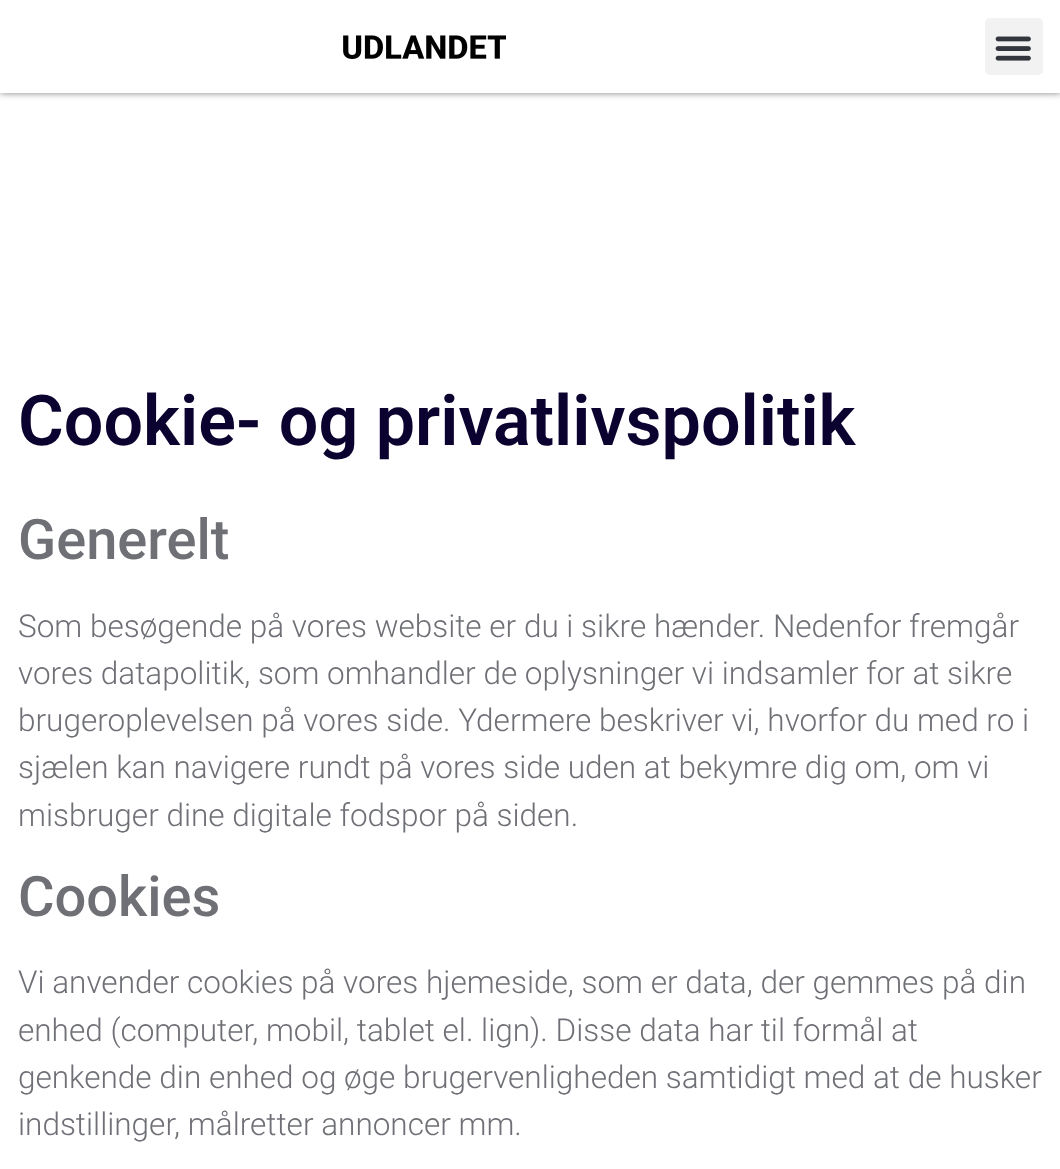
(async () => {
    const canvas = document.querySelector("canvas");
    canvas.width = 1060;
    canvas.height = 1169;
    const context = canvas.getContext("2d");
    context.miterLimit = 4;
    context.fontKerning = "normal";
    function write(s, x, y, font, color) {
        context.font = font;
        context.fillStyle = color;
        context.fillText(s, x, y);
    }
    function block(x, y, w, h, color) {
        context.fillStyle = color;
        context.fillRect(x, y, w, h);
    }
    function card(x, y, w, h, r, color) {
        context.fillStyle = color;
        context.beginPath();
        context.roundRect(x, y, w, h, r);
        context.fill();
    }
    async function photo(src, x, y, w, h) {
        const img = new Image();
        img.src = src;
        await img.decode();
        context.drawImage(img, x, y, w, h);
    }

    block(0, 0, 1060, 1169, "rgb(255, 255, 255)");
    context.save();
    context.beginPath();
    context.moveTo(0, 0);
    context.lineTo(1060, 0);
    context.lineTo(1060, 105);
    context.lineTo(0, 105);
    context.closePath();
    context.moveTo(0, 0);
    context.lineTo(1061, 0);
    context.lineTo(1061, 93);
    context.lineTo(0, 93);
    context.closePath();
    context.clip("evenodd");
    context.fillStyle = "rgba(0, 0, 0, 0.5)";
    context.filter = "blur(3.5px)";
    context.beginPath();
    context.rect(0, 0, 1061, 93);
    context.fill();
    context.filter = "none";
    context.restore();
    await photo("media/1.png", 343, 35, 163, 24);
    card(985, 18, 58, 57, 5, "rgb(242, 242, 242)");
    await photo("media/2.png", 995, 36, 36, 25);
    write("Cookie- og privatlivspolitik", 18, 445, "600 70px Roboto", "rgb(12, 2, 47)");
    write("Generelt", 18, 559, "500 56px Roboto", "rgb(110, 112, 118)");
    write("Som besøgende på vores website er du i sikre hænder. Nedenfor fremgår", 18, 637, "300 31.5px Roboto", "rgb(110, 112, 118)");
    write("vores datapolitik, som omhandler de oplysninger vi indsamler for at sikre", 18, 684, "300 31.5px Roboto", "rgb(110, 112, 118)");
    write("brugeroplevelsen på vores side. Ydermere beskriver vi, hvorfor du med ro i", 18, 731, "300 31.5px Roboto", "rgb(110, 112, 118)");
    write("sjælen kan navigere rundt på vores side uden at bekymre dig om, om vi", 18, 778, "300 31.5px Roboto", "rgb(110, 112, 118)");
    write("misbruger dine digitale fodspor på siden.", 18, 826, "300 31.5px Roboto", "rgb(110, 112, 118)");
    write("Cookies", 18, 916, "500 56px Roboto", "rgb(110, 112, 118)");
    write("Vi anvender cookies på vores hjemeside, som er data, der gemmes på din", 18, 993, "300 31.5px Roboto", "rgb(110, 112, 118)");
    write("enhed (computer, mobil, tablet el. lign). Disse data har til formål at", 18, 1041, "300 31.5px Roboto", "rgb(110, 112, 118)");
    write("genkende din enhed og øge brugervenligheden samtidigt med at de husker", 18, 1088, "300 31.5px Roboto", "rgb(110, 112, 118)");
    write("indstillinger, målretter annoncer mm.", 18, 1135, "300 31.5px Roboto", "rgb(110, 112, 118)");
})();
